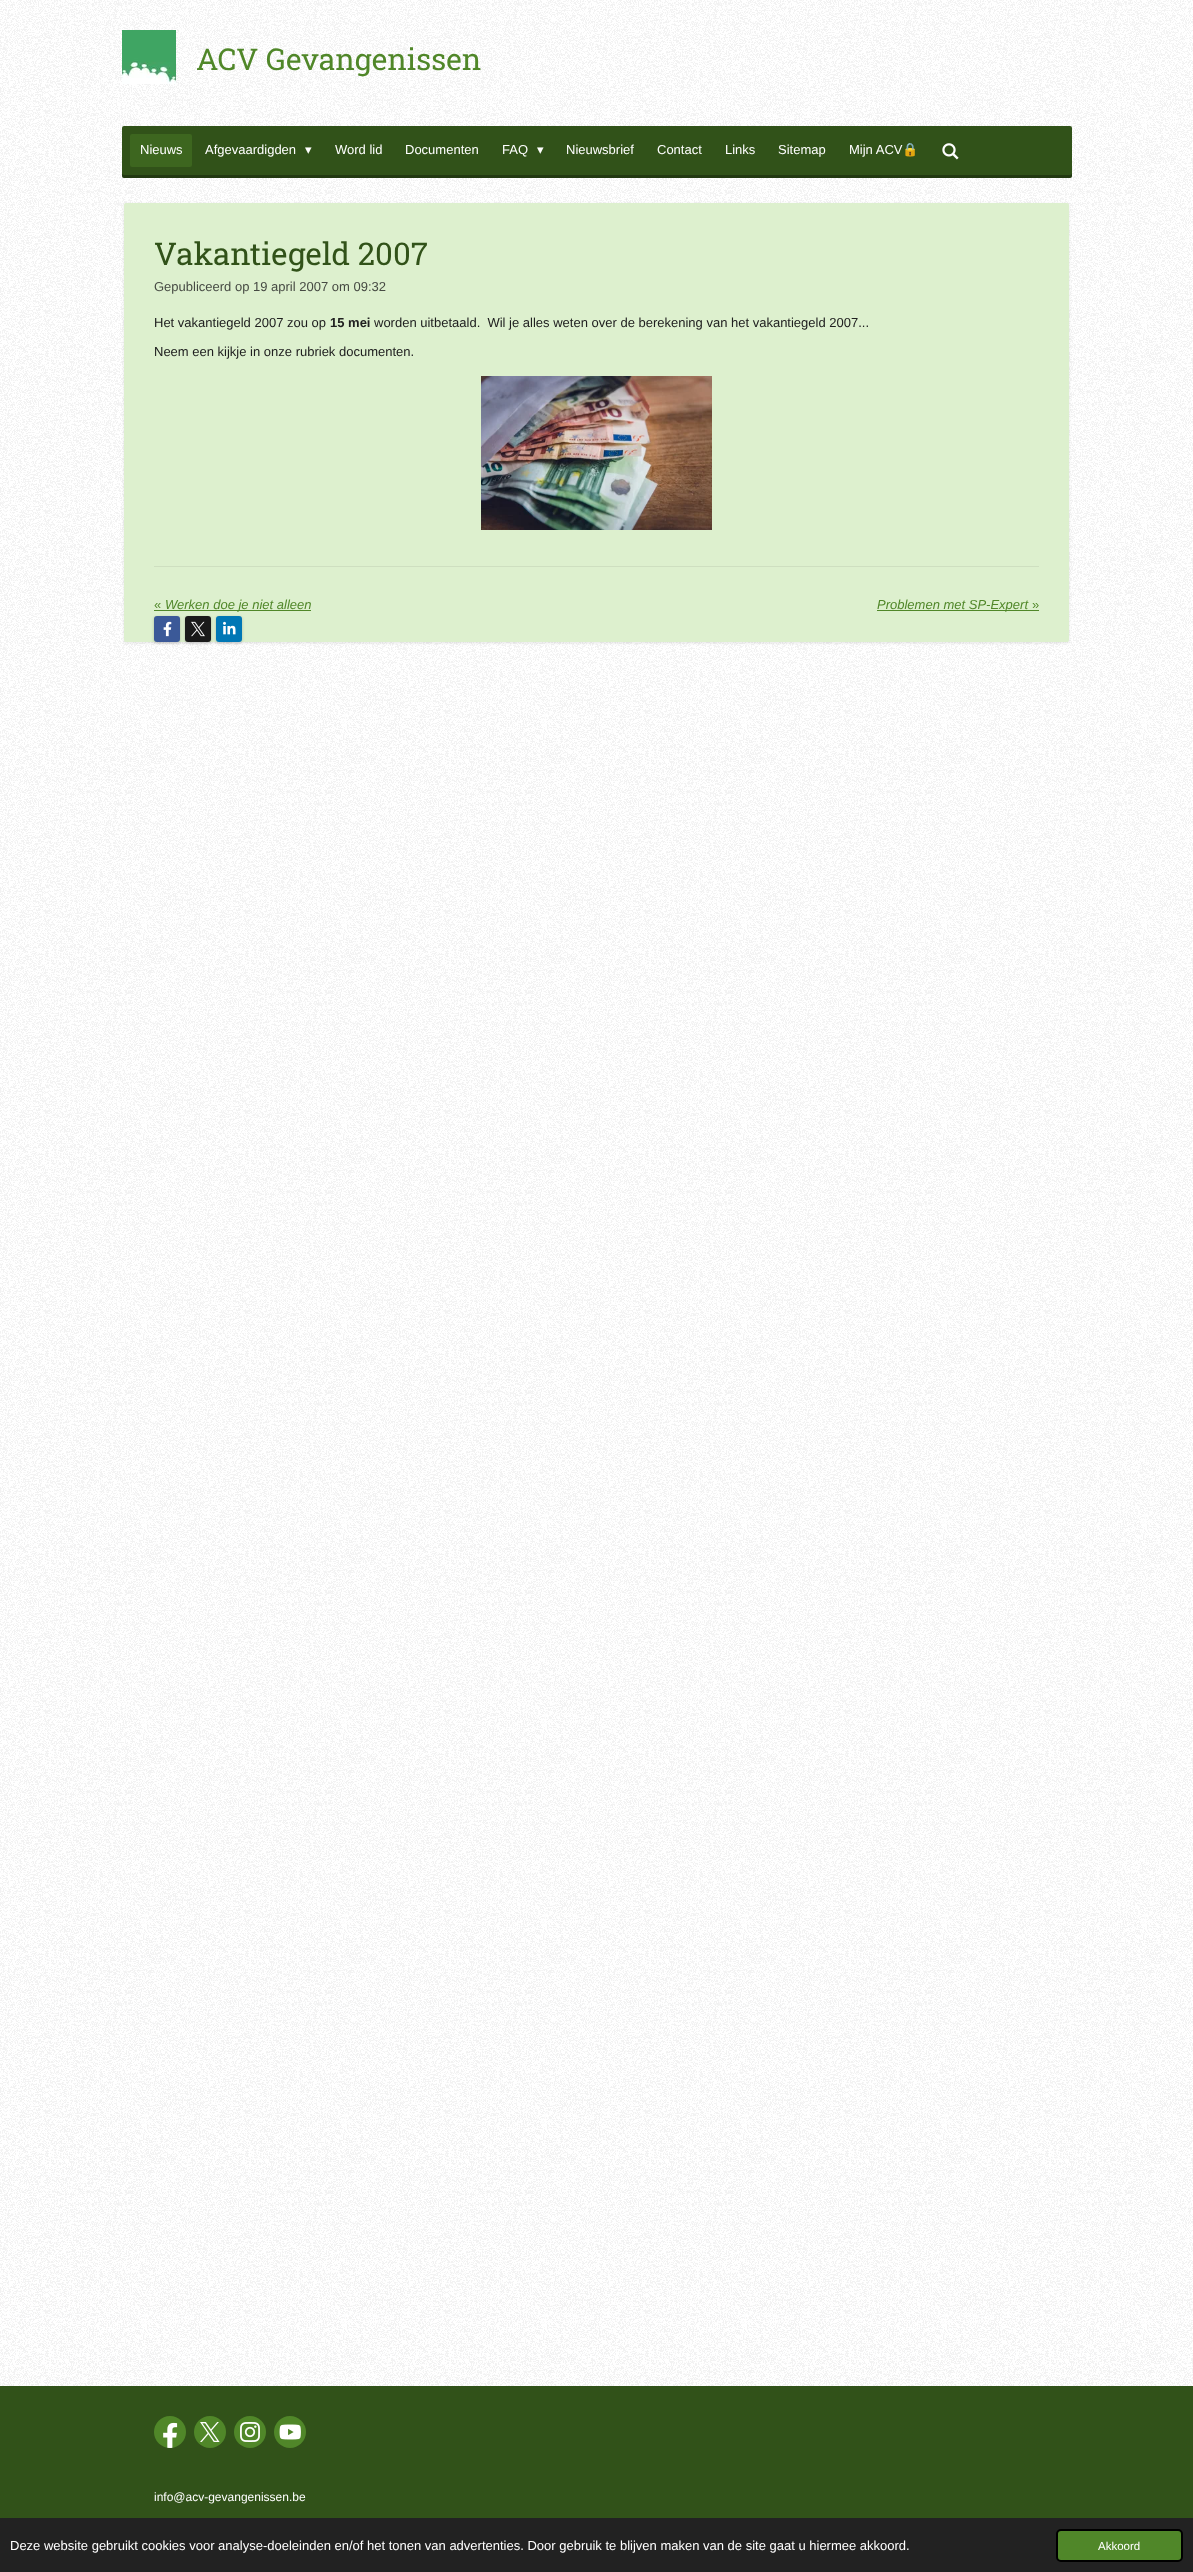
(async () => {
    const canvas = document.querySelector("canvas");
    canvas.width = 1193;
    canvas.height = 2572;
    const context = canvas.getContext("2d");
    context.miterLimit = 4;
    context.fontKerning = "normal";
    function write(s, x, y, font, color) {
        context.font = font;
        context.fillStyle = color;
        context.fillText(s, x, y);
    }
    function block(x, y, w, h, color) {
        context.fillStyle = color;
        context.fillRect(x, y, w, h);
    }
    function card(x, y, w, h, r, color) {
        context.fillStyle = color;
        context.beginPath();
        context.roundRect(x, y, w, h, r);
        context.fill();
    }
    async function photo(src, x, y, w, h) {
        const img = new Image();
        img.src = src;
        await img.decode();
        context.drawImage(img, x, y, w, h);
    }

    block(0, 0, 1193, 2572, "rgb(255, 255, 255)");
    await photo("media/1.png", 0, 0, 1193, 2386);
    await photo("media/2.png", 122, 30, 54, 54);
    write("ACV Gevangenissen", 196, 70, "30px Roboto Slab", "rgb(80, 135, 41)");
    card(122, 126, 950, 52, 2, "rgb(49, 82, 25)");
    context.fillStyle = "rgba(0, 0, 0, 0.3)";
    context.beginPath();
    context.moveTo(122, 173);
    context.lineTo(122, 176);
    context.bezierCurveTo(122, 177, 123, 178, 124, 178);
    context.lineTo(1070, 178);
    context.bezierCurveTo(1071, 178, 1072, 177, 1072, 176);
    context.lineTo(1072, 174);
    context.lineTo(1070, 175);
    context.lineTo(124, 175);
    context.bezierCurveTo(123, 175, 122, 174, 122, 173);
    context.closePath();
    context.fill();
    card(130, 134, 62, 33, 2, "rgb(61, 102, 31)");
    write("Nieuws", 140, 154, "13px Liberation Sans", "rgb(255, 255, 255)");
    write("Afgevaardigden", 205, 154, "13px Liberation Sans", "rgb(255, 255, 255)");
    write("▾", 305, 154, "13px DejaVu Sans", "rgb(255, 255, 255)");
    write("Word lid", 335, 154, "13px Liberation Sans", "rgb(255, 255, 255)");
    write("Documenten", 405, 154, "13px Liberation Sans", "rgb(255, 255, 255)");
    write("FAQ", 502, 154, "13px Liberation Sans", "rgb(255, 255, 255)");
    write("▾", 537, 154, "13px DejaVu Sans", "rgb(255, 255, 255)");
    write("Nieuwsbrief", 566, 154, "13px Liberation Sans", "rgb(255, 255, 255)");
    write("Contact", 657, 154, "13px Liberation Sans", "rgb(255, 255, 255)");
    write("Links", 725, 154, "13px Liberation Sans", "rgb(255, 255, 255)");
    write("Sitemap", 778, 154, "13px Liberation Sans", "rgb(255, 255, 255)");
    write("Mijn ACV", 849, 154, "13px Liberation Sans", "rgb(255, 255, 255)");
    write("🔒", 902, 154, "13px Noto Color Emoji", "rgb(255, 255, 255)");
    await photo("media/3.png", 942, 143, 17, 17);
    context.fillStyle = "rgba(0, 0, 0, 0.1)";
    context.filter = "blur(1.5px)";
    context.beginPath();
    context.rect(124, 204, 945, 439);
    context.fill();
    context.filter = "none";
    card(124, 203, 945, 439, 2, "rgb(221, 240, 206)");
    write("Vakantiegeld 2007", 154, 265, "31.25px Roboto Slab", "rgb(49, 82, 25)");
    write("Gepubliceerd op 19 april 2007 om 09:32", 154, 291, "13px Liberation Sans", "rgb(70, 74, 67)");
    write("Het vakantiegeld 2007 zou op", 154, 327, "13px Liberation Sans", "rgb(32, 32, 32)");
    write("15 mei", 330, 327, "bold 13px Liberation Sans", "rgb(32, 32, 32)");
    write("worden uitbetaald.  Wil je alles weten over de berekening van het vakantiegeld 2007...", 374, 327, "13px Liberation Sans", "rgb(32, 32, 32)");
    write("Neem een kijkje in onze rubriek documenten.", 154, 356, "13px Liberation Sans", "rgb(32, 32, 32)");
    await photo("media/4.png", 481, 376, 231, 154);
    block(154, 566, 885, 1, "rgb(206, 223, 192)");
    write("«", 154, 609, "13px Liberation Sans", "rgb(80, 135, 41)");
    block(154, 610, 157, 1, "rgb(80, 135, 41)");
    write("Werken doe je niet alleen", 165, 609, "italic 13px Liberation Sans", "rgb(80, 135, 41)");
    block(877, 610, 162, 1, "rgb(80, 135, 41)");
    write("Problemen met SP-Expert", 877, 609, "italic 13px Liberation Sans", "rgb(80, 135, 41)");
    write("»", 1032, 609, "13px Liberation Sans", "rgb(80, 135, 41)");
    context.fillStyle = "rgba(0, 0, 0, 0.2)";
    context.filter = "blur(1.5px)";
    context.beginPath();
    context.roundRect(154, 617, 26, 26, 3);
    context.fill();
    context.filter = "none";
    card(154, 616, 26, 26, 3, "rgb(59, 89, 152)");
    await photo("media/5.png", 163, 621, 9, 16);
    context.fillStyle = "rgba(0, 0, 0, 0.2)";
    context.filter = "blur(1.5px)";
    context.beginPath();
    context.roundRect(185, 617, 26, 26, 3);
    context.fill();
    context.filter = "none";
    card(185, 616, 26, 26, 3, "rgb(26, 26, 26)");
    await photo("media/6.png", 191, 621, 14, 16);
    context.fillStyle = "rgba(0, 0, 0, 0.2)";
    context.filter = "blur(1.5px)";
    context.beginPath();
    context.roundRect(216, 617, 26, 26, 3);
    context.fill();
    context.filter = "none";
    card(216, 616, 26, 26, 3, "rgb(0, 119, 181)");
    await photo("media/7.png", 223, 621, 13, 14);
    block(0, 2386, 1193, 132, "rgb(49, 82, 25)");
    context.fillStyle = "rgb(80, 135, 41)";
    context.beginPath();
    context.arc(170, 2432, 16, 0, Math.PI * 2);
    context.fill();
    await photo("media/8.png", 163, 2422, 15, 26);
    context.beginPath();
    context.arc(210, 2432, 16, 0, Math.PI * 2);
    context.fill();
    await photo("media/9.png", 200, 2422, 20, 20);
    context.beginPath();
    context.arc(250, 2432, 16, 0, Math.PI * 2);
    context.fill();
    await photo("media/10.png", 240, 2422, 20, 20);
    context.beginPath();
    context.arc(290, 2432, 16, 0, Math.PI * 2);
    context.fill();
    await photo("media/11.png", 279, 2424, 22, 16);
    write("info@acv-gevangenissen.be", 154, 2501, "12px Liberation Sans", "rgb(255, 255, 255)");
    block(0, 2518, 1193, 54, "rgb(34, 34, 34)");
    write("Deze website gebruikt cookies voor analyse-doeleinden en/of het tonen van advertenties. Door gebruik te blijven maken van de site gaat u hiermee akkoord.", 10, 2550, "13px Liberation Sans", "rgb(255, 255, 255)");
    context.fillStyle = "rgb(80, 135, 41)";
    context.beginPath();
    context.roundRect(1057, 2530, 125, 31, 4);
    context.fill();
    context.strokeStyle = "rgb(0, 0, 0)";
    context.lineWidth = 2;
    context.stroke();
    write("Akkoord", 1098, 2550, "11.5px Liberation Sans", "rgb(255, 255, 255)");
})();
